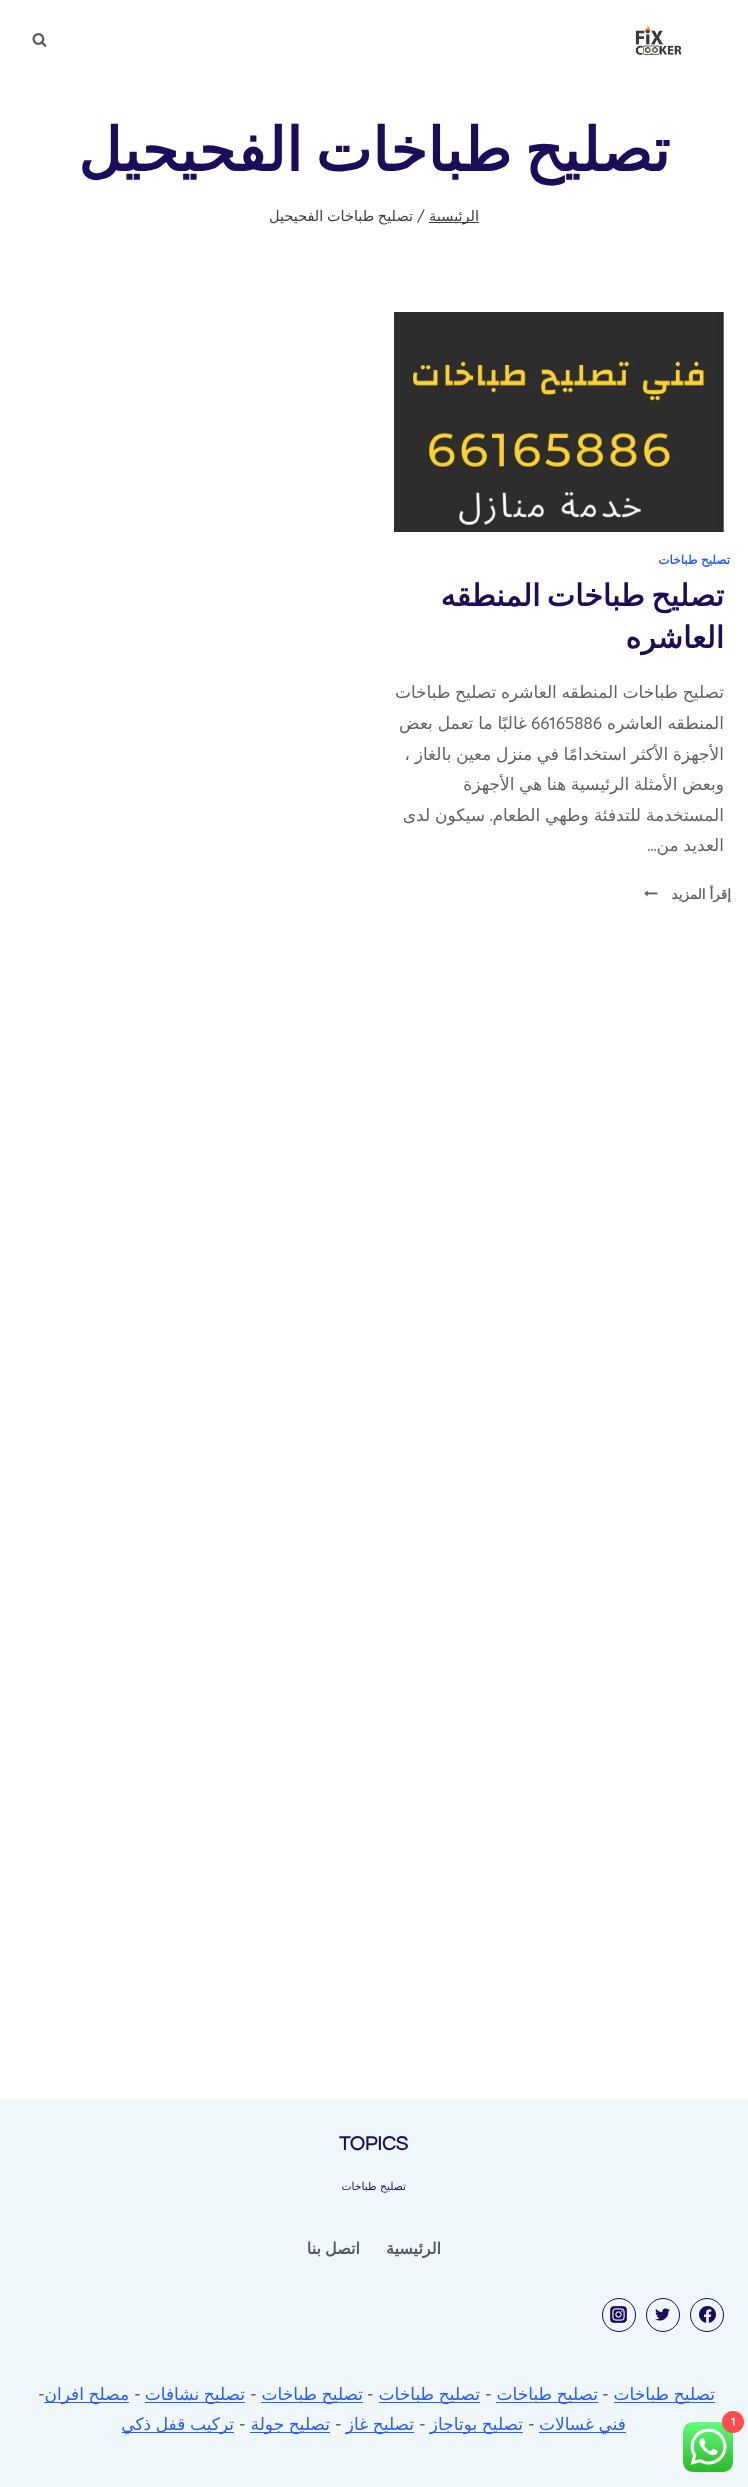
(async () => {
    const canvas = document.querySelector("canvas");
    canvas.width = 748;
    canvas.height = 2487;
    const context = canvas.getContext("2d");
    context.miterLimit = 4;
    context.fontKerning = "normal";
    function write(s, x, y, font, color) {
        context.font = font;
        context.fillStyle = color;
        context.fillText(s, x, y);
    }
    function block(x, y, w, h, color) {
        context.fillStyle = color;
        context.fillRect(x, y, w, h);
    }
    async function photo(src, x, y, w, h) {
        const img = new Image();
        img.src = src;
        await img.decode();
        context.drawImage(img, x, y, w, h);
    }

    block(0, 0, 748, 2487, "rgb(255, 255, 255)");
    block(0, 2099, 748, 388, "rgb(239, 247, 251)");
    await photo("media/1.png", 683, 2422, 50, 50);
    context.fillStyle = "rgb(255, 76, 76)";
    context.beginPath();
    context.arc(733, 2422, 11, 0, Math.PI * 2);
    context.fill();
    write("1", 731, 2426, "600 12px Quicksand", "rgb(255, 255, 255)");
    await photo("media/2.png", 635, 24, 47, 31);
    await photo("media/3.png", 32, 33, 15, 14);
    context.wordSpacing = "-6px";
    context.direction = "rtl";
    write("تصليح طباخات الفحيحيل", 670, 171, "bold 60px DejaVu Sans", "rgb(28, 13, 90)");
    block(429, 222, 50, 1, "rgb(61, 61, 61)");
    context.wordSpacing = "0px";
    write("الرئيسية", 479, 221, "14.5px DejaVu Sans", "rgb(61, 61, 61)");
    context.direction = "ltr";
    write("/", 417, 221, "500 14.5px Quicksand", "rgb(61, 61, 61)");
    context.wordSpacing = "-1px";
    context.direction = "rtl";
    write("تصليح طباخات الفحيحيل", 413, 221, "14.5px DejaVu Sans", "rgb(61, 61, 61)");
    await photo("media/4.png", 394, 312, 330, 220);
    context.letterSpacing = "0.6px";
    write("تصليح طباخات", 730, 564, "bold 12px DejaVu Sans", "rgb(41, 92, 255)");
    context.letterSpacing = "0px";
    context.wordSpacing = "-3px";
    write("تصليح طباخات المنطقه", 724, 606, "bold 30px DejaVu Sans", "rgb(28, 13, 90)");
    context.wordSpacing = "0px";
    write("العاشره", 724, 648, "bold 30px DejaVu Sans", "rgb(28, 13, 90)");
    context.wordSpacing = "-0.75px";
    write("تصليح طباخات المنطقه العاشره تصليح طباخات", 724, 698, "17px DejaVu Sans", "rgb(99, 99, 99)");
    write("المنطقه العاشره", 724, 729, "17px DejaVu Sans", "rgb(99, 99, 99)");
    context.wordSpacing = "0px";
    context.direction = "ltr";
    write("66165886", 531, 729, "500 17px Quicksand", "rgb(99, 99, 99)");
    context.wordSpacing = "-0.5px";
    context.direction = "rtl";
    write("غالبًا ما تعمل بعض", 527, 729, "17px DejaVu Sans", "rgb(99, 99, 99)");
    context.wordSpacing = "-0.75px";
    write("الأجهزة الأكثر استخدامًا في منزل معين بالغاز ،", 724, 760, "17px DejaVu Sans", "rgb(99, 99, 99)");
    write("وبعض الأمثلة الرئيسية هنا هي الأجهزة", 724, 790, "17px DejaVu Sans", "rgb(99, 99, 99)");
    context.wordSpacing = "-0.5px";
    write("المستخدمة للتدفئة وطهي الطعام", 724, 821, "17px DejaVu Sans", "rgb(99, 99, 99)");
    context.wordSpacing = "0px";
    write(".", 493, 821, "500 17px Quicksand", "rgb(99, 99, 99)");
    context.wordSpacing = "-0.5px";
    write("سيكون لدى", 485, 821, "17px DejaVu Sans", "rgb(99, 99, 99)");
    context.wordSpacing = "-0.75px";
    write("العديد من", 724, 851, "17px DejaVu Sans", "rgb(99, 99, 99)");
    context.wordSpacing = "0px";
    write("…", 657, 851, "500 17px Quicksand", "rgb(99, 99, 99)");
    context.letterSpacing = "0.75px";
    context.wordSpacing = "-1px";
    write("إقرأ المزيد", 731, 899, "bold 13.5px DejaVu Sans", "rgb(99, 99, 99)");
    await photo("media/5.png", 644, 890, 14, 7);
    context.letterSpacing = "0px";
    context.wordSpacing = "0px";
    context.direction = "ltr";
    write("TOPICS", 339, 2150, "bold 20px Questrial", "rgb(28, 13, 90)");
    context.direction = "rtl";
    write("تصليح طباخات", 406, 2190, "10.75px DejaVu Sans", "rgb(28, 13, 90)");
    write("الرئيسية", 441, 2254, "bold 16px DejaVu Sans", "rgb(87, 87, 93)");
    context.wordSpacing = "-1px";
    write("اتصل بنا", 360, 2254, "bold 16px DejaVu Sans", "rgb(87, 87, 93)");
    context.beginPath();
    context.arc(707, 2315, 16.5, 0, Math.PI * 2);
    context.strokeStyle = "rgb(28, 13, 90)";
    context.stroke();
    await photo("media/6.png", 699, 2306, 17, 17);
    context.beginPath();
    context.arc(663, 2315, 16.5, 0, Math.PI * 2);
    context.stroke();
    await photo("media/7.png", 655, 2308, 15, 13);
    context.beginPath();
    context.arc(619, 2315, 16.5, 0, Math.PI * 2);
    context.stroke();
    await photo("media/8.png", 610, 2306, 17, 17);
    block(614, 2402, 101, 1, "rgb(41, 92, 255)");
    context.wordSpacing = "-0.75px";
    write("تصليح طباخات", 715, 2400, "17px DejaVu Sans", "rgb(41, 92, 255)");
    context.wordSpacing = "0px";
    context.direction = "ltr";
    write("-", 602, 2400, "500 17px Quicksand", "rgb(99, 99, 99)");
    block(496, 2402, 102, 1, "rgb(41, 92, 255)");
    context.wordSpacing = "-0.75px";
    context.direction = "rtl";
    write("تصليح طباخات", 598, 2400, "17px DejaVu Sans", "rgb(41, 92, 255)");
    context.wordSpacing = "0px";
    context.direction = "ltr";
    write("-", 485, 2400, "500 17px Quicksand", "rgb(99, 99, 99)");
    block(379, 2402, 101, 1, "rgb(41, 92, 255)");
    context.wordSpacing = "-0.75px";
    context.direction = "rtl";
    write("تصليح طباخات", 480, 2400, "17px DejaVu Sans", "rgb(41, 92, 255)");
    context.wordSpacing = "0px";
    context.direction = "ltr";
    write("-", 367, 2400, "500 17px Quicksand", "rgb(99, 99, 99)");
    block(261, 2402, 102, 1, "rgb(41, 92, 255)");
    context.wordSpacing = "-0.75px";
    context.direction = "rtl";
    write("تصليح طباخات", 363, 2400, "17px DejaVu Sans", "rgb(41, 92, 255)");
    context.wordSpacing = "0px";
    context.direction = "ltr";
    write("-", 250, 2400, "500 17px Quicksand", "rgb(99, 99, 99)");
    block(145, 2402, 100, 1, "rgb(41, 92, 255)");
    context.wordSpacing = "-0.75px";
    context.direction = "rtl";
    write("تصليح نشافات", 245, 2400, "17px DejaVu Sans", "rgb(41, 92, 255)");
    context.wordSpacing = "0px";
    context.direction = "ltr";
    write("-", 134, 2400, "500 17px Quicksand", "rgb(99, 99, 99)");
    block(44, 2402, 85, 1, "rgb(41, 92, 255)");
    context.wordSpacing = "-0.75px";
    context.direction = "rtl";
    write("مصلح افران", 129, 2400, "17px DejaVu Sans", "rgb(41, 92, 255)");
    context.wordSpacing = "0px";
    context.direction = "ltr";
    write("-", 38, 2400, "500 17px Quicksand", "rgb(99, 99, 99)");
    block(539, 2432, 87, 1, "rgb(41, 92, 255)");
    context.wordSpacing = "-0.75px";
    context.direction = "rtl";
    write("فني غسالات", 626, 2430, "17px DejaVu Sans", "rgb(41, 92, 255)");
    context.wordSpacing = "0px";
    context.direction = "ltr";
    write("-", 528, 2430, "500 17px Quicksand", "rgb(99, 99, 99)");
    block(430, 2432, 93, 1, "rgb(41, 92, 255)");
    context.wordSpacing = "-0.75px";
    context.direction = "rtl";
    write("تصليح بوتاجاز", 523, 2430, "17px DejaVu Sans", "rgb(41, 92, 255)");
    context.wordSpacing = "0px";
    context.direction = "ltr";
    write("-", 419, 2430, "500 17px Quicksand", "rgb(99, 99, 99)");
    block(346, 2432, 68, 1, "rgb(41, 92, 255)");
    context.wordSpacing = "-0.75px";
    context.direction = "rtl";
    write("تصليح غاز", 414, 2430, "17px DejaVu Sans", "rgb(41, 92, 255)");
    context.wordSpacing = "0px";
    context.direction = "ltr";
    write("-", 335, 2430, "500 17px Quicksand", "rgb(99, 99, 99)");
    block(250, 2432, 80, 1, "rgb(41, 92, 255)");
    context.wordSpacing = "-0.75px";
    context.direction = "rtl";
    write("تصليح جولة", 330, 2430, "17px DejaVu Sans", "rgb(41, 92, 255)");
    context.wordSpacing = "0px";
    context.direction = "ltr";
    write("-", 239, 2430, "500 17px Quicksand", "rgb(99, 99, 99)");
    block(122, 2432, 112, 1, "rgb(41, 92, 255)");
    context.wordSpacing = "-0.75px";
    context.direction = "rtl";
    write("تركيب قفل ذكي", 234, 2430, "17px DejaVu Sans", "rgb(41, 92, 255)");
})();
